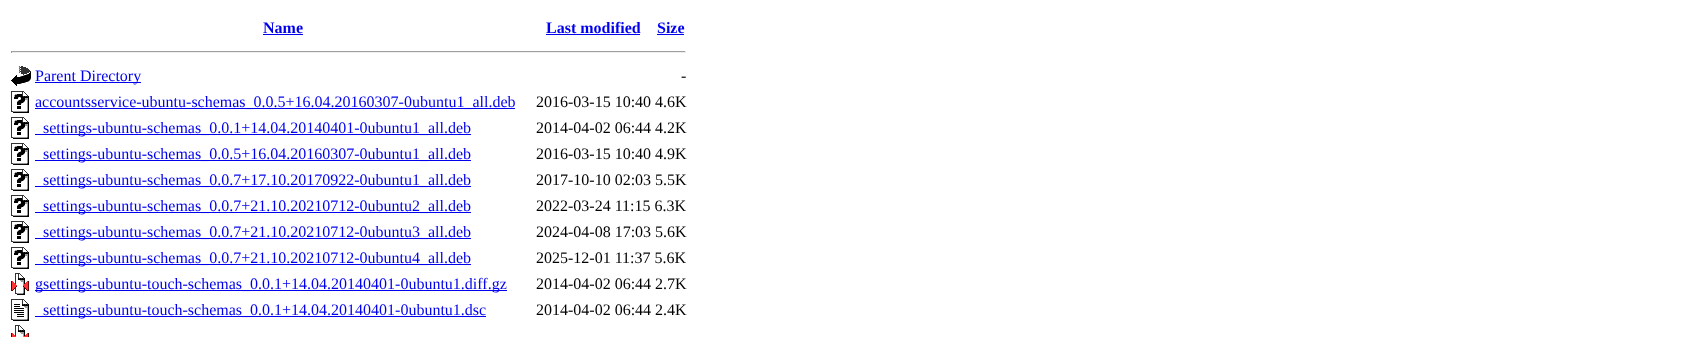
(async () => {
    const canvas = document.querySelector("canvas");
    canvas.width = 1685;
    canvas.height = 337;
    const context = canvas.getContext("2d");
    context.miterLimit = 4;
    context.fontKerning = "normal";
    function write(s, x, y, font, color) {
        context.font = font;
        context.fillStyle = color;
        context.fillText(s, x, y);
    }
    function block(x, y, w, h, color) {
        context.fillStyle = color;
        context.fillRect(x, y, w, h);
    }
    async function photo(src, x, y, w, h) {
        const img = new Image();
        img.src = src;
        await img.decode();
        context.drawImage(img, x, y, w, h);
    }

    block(0, 0, 1685, 337, "rgb(255, 255, 255)");
    write("Name", 263, 33, "bold 16px Liberation Serif", "rgb(0, 0, 238)");
    block(263, 34, 40, 1, "rgb(0, 0, 238)");
    write("Last modified", 546, 33, "bold 16px Liberation Serif", "rgb(0, 0, 238)");
    block(546, 34, 94, 1, "rgb(0, 0, 238)");
    write("Size", 657, 33, "bold 16px Liberation Serif", "rgb(0, 0, 238)");
    block(657, 34, 27, 1, "rgb(0, 0, 238)");
    block(11, 51, 675, 1, "rgb(159, 159, 159)");
    block(685, 51, 1, 2, "rgb(238, 238, 238)");
    block(11, 52, 675, 1, "rgb(238, 238, 238)");
    block(11, 51, 1, 2, "rgb(159, 159, 159)");
    await photo("media/1.png", 11, 66, 20, 20);
    block(35, 82, 106, 1, "rgb(0, 0, 238)");
    write("Parent Directory", 35, 81, "16px Liberation Serif", "rgb(0, 0, 238)");
    write("-", 681, 81, "16px Liberation Serif", "rgb(0, 0, 0)");
    await photo("media/2.png", 11, 91, 18, 22);
    block(35, 108, 480, 1, "rgb(0, 0, 238)");
    write("accountsservice-ubuntu-schemas_0.0.5+16.04.20160307-0ubuntu1_all.deb", 35, 107, "16px Liberation Serif", "rgb(0, 0, 238)");
    write("2016-03-15 10:40 4.6K", 536, 107, "16px Liberation Serif", "rgb(0, 0, 0)");
    await photo("media/2.png", 11, 117, 18, 22);
    block(35, 134, 436, 1, "rgb(0, 0, 238)");
    write("settings-ubuntu-schemas_0.0.1+14.04.20140401-0ubuntu1_all.deb", 43, 133, "16px Liberation Serif", "rgb(0, 0, 238)");
    write("2014-04-02 06:44 4.2K", 536, 133, "16px Liberation Serif", "rgb(0, 0, 0)");
    await photo("media/2.png", 11, 143, 18, 22);
    block(35, 160, 436, 1, "rgb(0, 0, 238)");
    write("settings-ubuntu-schemas_0.0.5+16.04.20160307-0ubuntu1_all.deb", 43, 159, "16px Liberation Serif", "rgb(0, 0, 238)");
    write("2016-03-15 10:40 4.9K", 536, 159, "16px Liberation Serif", "rgb(0, 0, 0)");
    await photo("media/2.png", 11, 169, 18, 22);
    block(35, 186, 436, 1, "rgb(0, 0, 238)");
    write("settings-ubuntu-schemas_0.0.7+17.10.20170922-0ubuntu1_all.deb", 43, 185, "16px Liberation Serif", "rgb(0, 0, 238)");
    write("2017-10-10 02:03 5.5K", 536, 185, "16px Liberation Serif", "rgb(0, 0, 0)");
    await photo("media/2.png", 11, 195, 18, 22);
    block(35, 212, 436, 1, "rgb(0, 0, 238)");
    write("settings-ubuntu-schemas_0.0.7+21.10.20210712-0ubuntu2_all.deb", 43, 211, "16px Liberation Serif", "rgb(0, 0, 238)");
    write("2022-03-24 11:15 6.3K", 536, 211, "16px Liberation Serif", "rgb(0, 0, 0)");
    await photo("media/2.png", 11, 221, 18, 22);
    block(35, 238, 436, 1, "rgb(0, 0, 238)");
    write("settings-ubuntu-schemas_0.0.7+21.10.20210712-0ubuntu3_all.deb", 43, 237, "16px Liberation Serif", "rgb(0, 0, 238)");
    write("2024-04-08 17:03 5.6K", 536, 237, "16px Liberation Serif", "rgb(0, 0, 0)");
    await photo("media/2.png", 11, 247, 18, 22);
    block(35, 264, 436, 1, "rgb(0, 0, 238)");
    write("settings-ubuntu-schemas_0.0.7+21.10.20210712-0ubuntu4_all.deb", 43, 263, "16px Liberation Serif", "rgb(0, 0, 238)");
    write("2025-12-01 11:37 5.6K", 536, 263, "16px Liberation Serif", "rgb(0, 0, 0)");
    await photo("media/3.png", 11, 273, 18, 22);
    block(35, 290, 472, 1, "rgb(0, 0, 238)");
    write("gsettings-ubuntu-touch-schemas_0.0.1+14.04.20140401-0ubuntu1.diff.gz", 35, 289, "16px Liberation Serif", "rgb(0, 0, 238)");
    write("2014-04-02 06:44 2.7K", 536, 289, "16px Liberation Serif", "rgb(0, 0, 0)");
    await photo("media/4.png", 11, 299, 18, 22);
    block(35, 316, 451, 1, "rgb(0, 0, 238)");
    write("settings-ubuntu-touch-schemas_0.0.1+14.04.20140401-0ubuntu1.dsc", 43, 315, "16px Liberation Serif", "rgb(0, 0, 238)");
    write("2014-04-02 06:44 2.4K", 536, 315, "16px Liberation Serif", "rgb(0, 0, 0)");
    await photo("media/5.png", 11, 325, 18, 12);
})();
